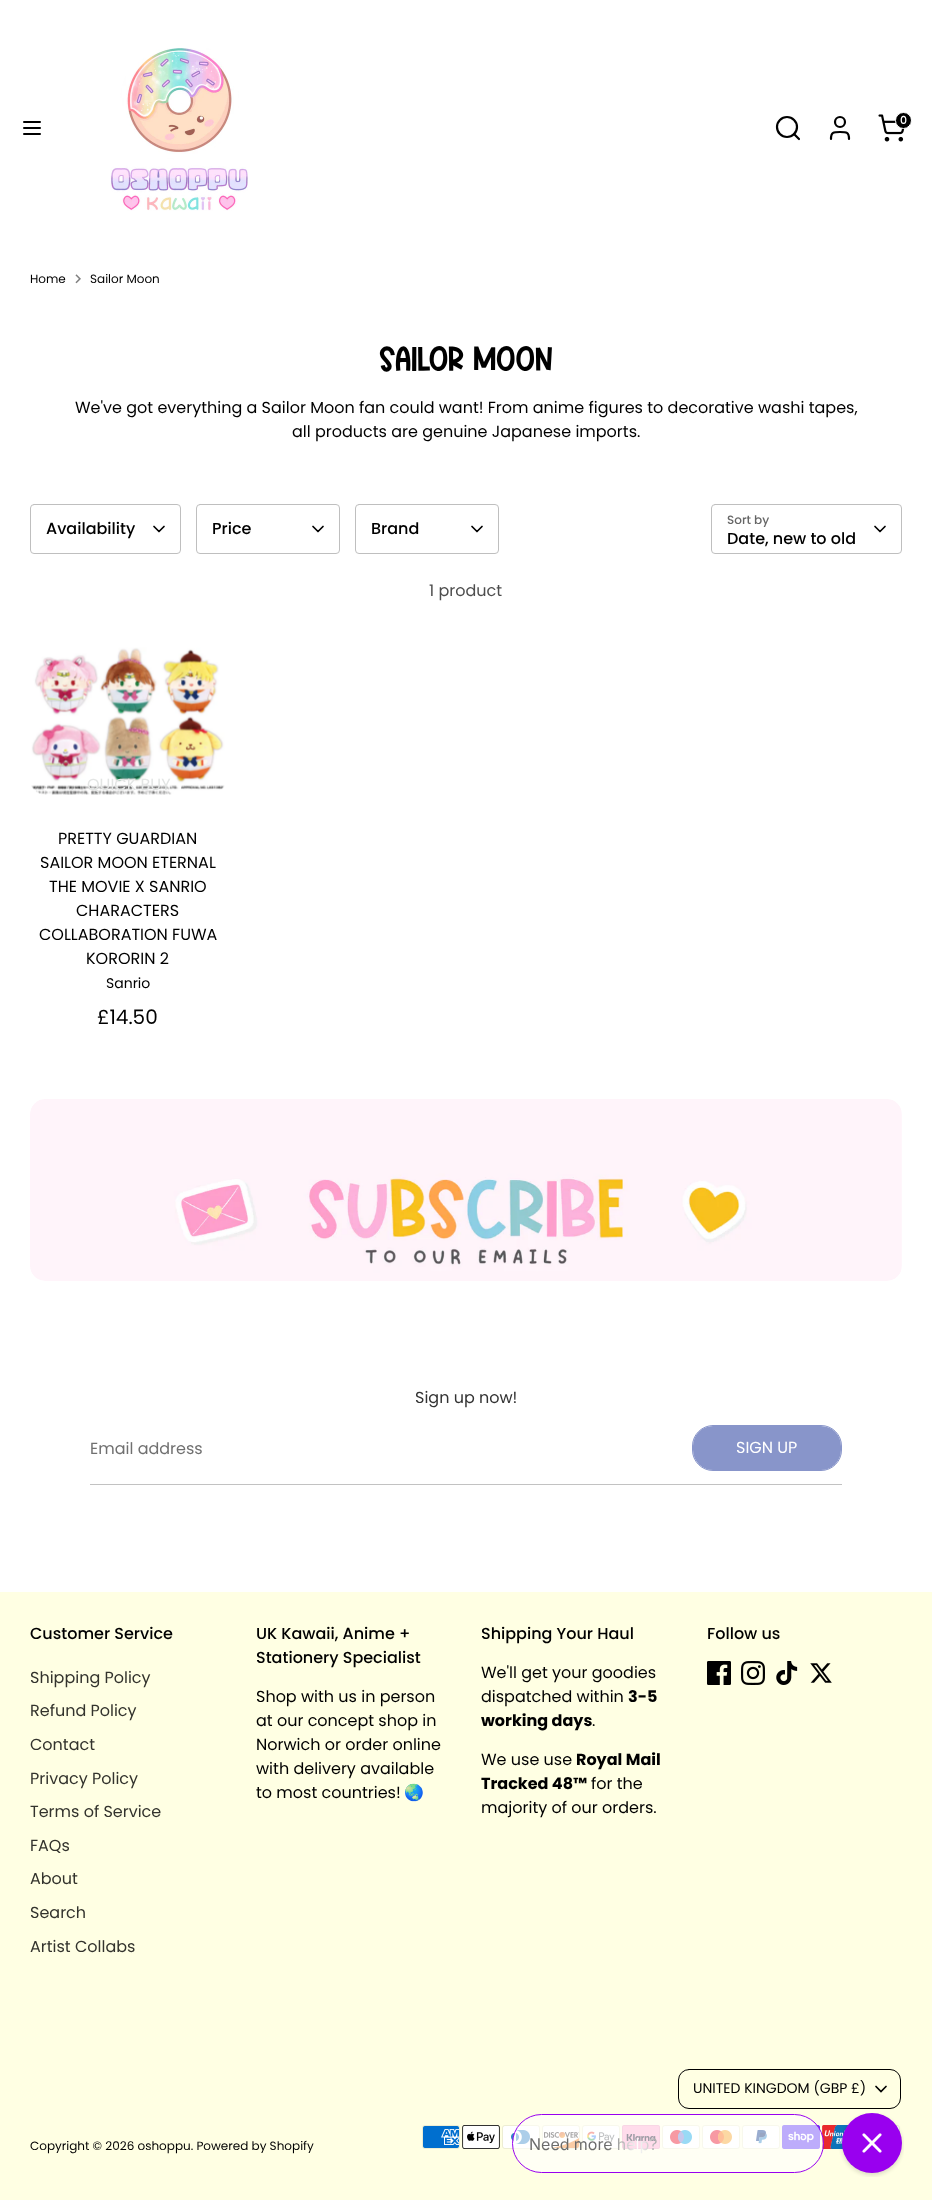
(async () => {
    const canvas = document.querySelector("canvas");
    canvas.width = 932;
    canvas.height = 2200;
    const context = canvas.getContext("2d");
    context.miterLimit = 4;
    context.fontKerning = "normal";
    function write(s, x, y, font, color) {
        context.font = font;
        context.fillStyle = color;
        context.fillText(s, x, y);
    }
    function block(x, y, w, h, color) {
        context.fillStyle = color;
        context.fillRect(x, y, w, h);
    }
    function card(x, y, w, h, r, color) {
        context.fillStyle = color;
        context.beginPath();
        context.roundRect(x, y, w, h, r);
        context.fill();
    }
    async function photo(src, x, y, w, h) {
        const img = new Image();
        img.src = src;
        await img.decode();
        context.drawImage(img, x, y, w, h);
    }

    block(0, 0, 932, 2200, "rgb(255, 255, 255)");
    await photo("media/1.png", 110, 48, 138, 163);
    context.beginPath();
    context.arc(787, 127, 10, 0, Math.PI * 2);
    context.strokeStyle = "rgb(0, 0, 0)";
    context.lineWidth = 2.2;
    context.stroke();
    context.beginPath();
    context.moveTo(799, 139);
    context.lineTo(794, 134);
    context.moveTo(849, 139);
    context.bezierCurveTo(849, 132, 846.5, 132, 840, 132);
    context.bezierCurveTo(833.5, 132, 831, 132, 831, 139);
    context.lineCap = "round";
    context.lineJoin = "round";
    context.stroke();
    context.beginPath();
    context.arc(840, 122, 5, 0, Math.PI * 2);
    context.stroke();
    await photo("media/2.png", 878, 114, 27, 28);
    context.fillStyle = "rgb(0, 0, 0)";
    context.beginPath();
    context.arc(903.5, 120.5, 8, 0, Math.PI * 2);
    context.fill();
    context.strokeStyle = "rgb(255, 255, 255)";
    context.lineWidth = 1;
    context.stroke();
    write("0", 900, 124, "500 11px Poppins", "rgb(255, 255, 255)");
    context.beginPath();
    context.moveTo(24, 128);
    context.lineTo(40, 128);
    context.moveTo(24, 122);
    context.lineTo(40, 122);
    context.moveTo(24, 134);
    context.lineTo(40, 134);
    context.strokeStyle = "rgb(0, 0, 0)";
    context.lineWidth = 2;
    context.stroke();
    write("Home", 30, 283, "12px Poppins", "rgb(0, 0, 0)");
    await photo("media/3.png", 75, 274, 6, 10);
    write("Sailor Moon", 90, 283, "12px Poppins", "rgb(0, 0, 0)");
    write("Sailor Moon", 379, 371, "40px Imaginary", "rgb(0, 0, 0)");
    write("We've got everything a Sailor Moon fan could want! From anime figures to decorative washi tapes,", 75, 413, "16px Poppins", "rgb(0, 0, 0)");
    write("all products are genuine Japanese imports.", 292, 437, "16px Poppins", "rgb(0, 0, 0)");
    context.beginPath();
    context.roundRect(30.5, 504.5, 150, 49, 3.5);
    context.strokeStyle = "rgb(191, 191, 191)";
    context.lineWidth = 1;
    context.lineJoin = "miter";
    context.stroke();
    write("Availability", 46, 534, "500 16px Poppins", "rgb(0, 0, 0)");
    context.beginPath();
    context.moveTo(154, 526.5);
    context.lineTo(159, 531.5);
    context.lineTo(164, 526.5);
    context.strokeStyle = "rgb(0, 0, 0)";
    context.lineWidth = 1.7;
    context.lineJoin = "round";
    context.stroke();
    context.beginPath();
    context.roundRect(196.5, 504.5, 143, 49, 3.5);
    context.strokeStyle = "rgb(191, 191, 191)";
    context.lineWidth = 1;
    context.lineJoin = "miter";
    context.stroke();
    write("Price", 212, 534, "500 16px Poppins", "rgb(0, 0, 0)");
    context.beginPath();
    context.moveTo(313, 526.5);
    context.lineTo(318, 531.5);
    context.lineTo(323, 526.5);
    context.strokeStyle = "rgb(0, 0, 0)";
    context.lineWidth = 1.7;
    context.lineJoin = "round";
    context.stroke();
    context.beginPath();
    context.roundRect(355.5, 504.5, 143, 49, 3.5);
    context.strokeStyle = "rgb(191, 191, 191)";
    context.lineWidth = 1;
    context.lineJoin = "miter";
    context.stroke();
    write("Brand", 371, 534, "500 16px Poppins", "rgb(0, 0, 0)");
    context.beginPath();
    context.moveTo(472, 526.5);
    context.lineTo(477, 531.5);
    context.lineTo(482, 526.5);
    context.strokeStyle = "rgb(0, 0, 0)";
    context.lineWidth = 1.7;
    context.lineJoin = "round";
    context.stroke();
    context.beginPath();
    context.roundRect(711.5, 504.5, 190, 49, 3.5);
    context.strokeStyle = "rgb(191, 191, 191)";
    context.lineWidth = 1;
    context.lineJoin = "miter";
    context.stroke();
    write("Sort by", 727, 524, "500 12px Poppins", "rgb(102, 102, 102)");
    context.beginPath();
    context.moveTo(875, 526.5);
    context.lineTo(880, 531.5);
    context.lineTo(885, 526.5);
    context.strokeStyle = "rgb(0, 0, 0)";
    context.lineWidth = 1.7;
    context.lineJoin = "round";
    context.stroke();
    write("Date, new to old", 727, 544, "500 16px Poppins", "rgb(0, 0, 0)");
    write("1 product", 429, 596, "16px Poppins", "rgb(77, 77, 77)");
    await photo("media/4.png", 31, 647, 194, 148);
    write("QUICK BUY", 87, 790, "16px Poppins", "rgb(227, 229, 228)");
    write("PRETTY GUARDIAN", 58, 844, "16px Poppins", "rgb(0, 0, 0)");
    write("SAILOR MOON ETERNAL", 40, 868, "16px Poppins", "rgb(0, 0, 0)");
    write("THE MOVIE X SANRIO", 49, 892, "16px Poppins", "rgb(0, 0, 0)");
    write("CHARACTERS", 76, 916, "16px Poppins", "rgb(0, 0, 0)");
    write("COLLABORATION FUWA", 39, 940, "16px Poppins", "rgb(0, 0, 0)");
    write("KORORIN 2", 86, 964, "16px Poppins", "rgb(0, 0, 0)");
    write("Sanrio", 106, 988, "14px Poppins", "rgb(0, 0, 0)");
    write("£14.50", 97, 1024, "20px Poppins", "rgb(0, 0, 0)");
    await photo("media/5.png", 30, 1099, 872, 182);
    write("Sign up now!", 415, 1403, "16px Poppins", "rgb(51, 51, 51)");
    block(90, 1484, 752, 1, "rgb(194, 194, 194)");
    write("Email address", 90, 1454, "16px Poppins", "rgb(112, 112, 112)");
    context.beginPath();
    context.roundRect(692.5, 1425.5, 149, 45, 20.5);
    context.strokeStyle = "rgb(136, 149, 202)";
    context.lineWidth = 1;
    context.lineJoin = "miter";
    context.stroke();
    card(693, 1426, 148, 44, 20, "rgb(136, 149, 202)");
    write("SIGN UP", 736, 1453, "16px Poppins", "rgb(255, 255, 255)");
    block(0, 1592, 932, 608, "rgb(255, 255, 227)");
    write("Customer Service", 30, 1639, "500 16px Poppins", "rgb(0, 0, 0)");
    write("Shipping Policy", 30, 1683, "16px Poppins", "rgb(51, 51, 45)");
    write("Refund Policy", 30, 1716, "16px Poppins", "rgb(51, 51, 45)");
    write("Contact", 30, 1750, "16px Poppins", "rgb(51, 51, 45)");
    write("Privacy Policy", 30, 1784, "16px Poppins", "rgb(51, 51, 45)");
    write("Terms of Service", 30, 1817, "16px Poppins", "rgb(51, 51, 45)");
    write("FAQs", 30, 1851, "16px Poppins", "rgb(51, 51, 45)");
    write("About", 30, 1884, "16px Poppins", "rgb(51, 51, 45)");
    write("Search", 30, 1918, "16px Poppins", "rgb(51, 51, 45)");
    write("Artist Collabs", 30, 1952, "16px Poppins", "rgb(51, 51, 45)");
    write("UK Kawaii, Anime +", 256, 1639, "500 16px Poppins", "rgb(0, 0, 0)");
    write("Stationery Specialist", 256, 1663, "500 16px Poppins", "rgb(0, 0, 0)");
    write("Shop with us in person", 256, 1702, "16px Poppins", "rgb(0, 0, 0)");
    write("at our concept shop in", 256, 1726, "16px Poppins", "rgb(0, 0, 0)");
    write("Norwich or order online", 256, 1750, "16px Poppins", "rgb(0, 0, 0)");
    write("with delivery available", 256, 1774, "16px Poppins", "rgb(0, 0, 0)");
    write("to most countries!", 256, 1798, "16px Poppins", "rgb(0, 0, 0)");
    write("🌏", 404, 1798, "16px Noto Color Emoji", "rgb(0, 0, 0)");
    write("Shipping Your Haul", 481, 1639, "500 16px Poppins", "rgb(0, 0, 0)");
    write("We'll get your goodies", 481, 1678, "16px Poppins", "rgb(0, 0, 0)");
    write("dispatched within", 481, 1702, "16px Poppins", "rgb(0, 0, 0)");
    write("3-5", 628, 1702, "bold 16px Poppins", "rgb(0, 0, 0)");
    write("working days", 481, 1726, "bold 16px Poppins", "rgb(0, 0, 0)");
    write(".", 592, 1726, "16px Poppins", "rgb(0, 0, 0)");
    write("We use use", 481, 1765, "16px Poppins", "rgb(0, 0, 0)");
    write("Royal Mail", 576, 1765, "bold 16px Poppins", "rgb(0, 0, 0)");
    write("Tracked 48™", 481, 1789, "bold 16px Poppins", "rgb(0, 0, 0)");
    write("for the", 591, 1789, "16px Poppins", "rgb(0, 0, 0)");
    write("majority of our orders.", 481, 1813, "16px Poppins", "rgb(0, 0, 0)");
    write("Follow us", 707, 1639, "500 16px Poppins", "rgb(0, 0, 0)");
    await photo("media/6.png", 707, 1661, 24, 24);
    await photo("media/7.png", 741, 1661, 24, 24);
    await photo("media/8.png", 776, 1661, 22, 24);
    await photo("media/9.png", 810, 1663, 22, 20);
    context.beginPath();
    context.roundRect(678.5, 2069.5, 222, 39, 10.5);
    context.strokeStyle = "rgb(0, 0, 0)";
    context.stroke();
    write("UNITED KINGDOM (GBP £)", 693, 2093, "14px Poppins", "rgb(0, 0, 0)");
    context.beginPath();
    context.moveTo(876, 2086.5);
    context.lineTo(881, 2091.5);
    context.lineTo(886, 2086.5);
    context.lineWidth = 1.7;
    context.stroke();
    await photo("media/10.png", 422, 2125, 38, 24);
    await photo("media/11.png", 462, 2125, 38, 24);
    await photo("media/12.png", 502, 2125, 38, 24);
    await photo("media/13.png", 542, 2125, 38, 24);
    await photo("media/14.png", 582, 2125, 38, 24);
    await photo("media/15.png", 622, 2125, 38, 24);
    await photo("media/16.png", 662, 2125, 38, 24);
    await photo("media/17.png", 702, 2125, 38, 24);
    await photo("media/18.png", 742, 2125, 38, 24);
    await photo("media/19.png", 782, 2125, 38, 24);
    await photo("media/20.png", 822, 2125, 27, 24);
    await photo("media/21.png", 895, 2125, 5, 8);
    write("Copyright © 2026 oshoppu. Powered by Shopify", 30, 2150, "12px Poppins", "rgb(0, 0, 0)");
    await photo("media/22.png", 512, 2113, 392, 64);
})();
